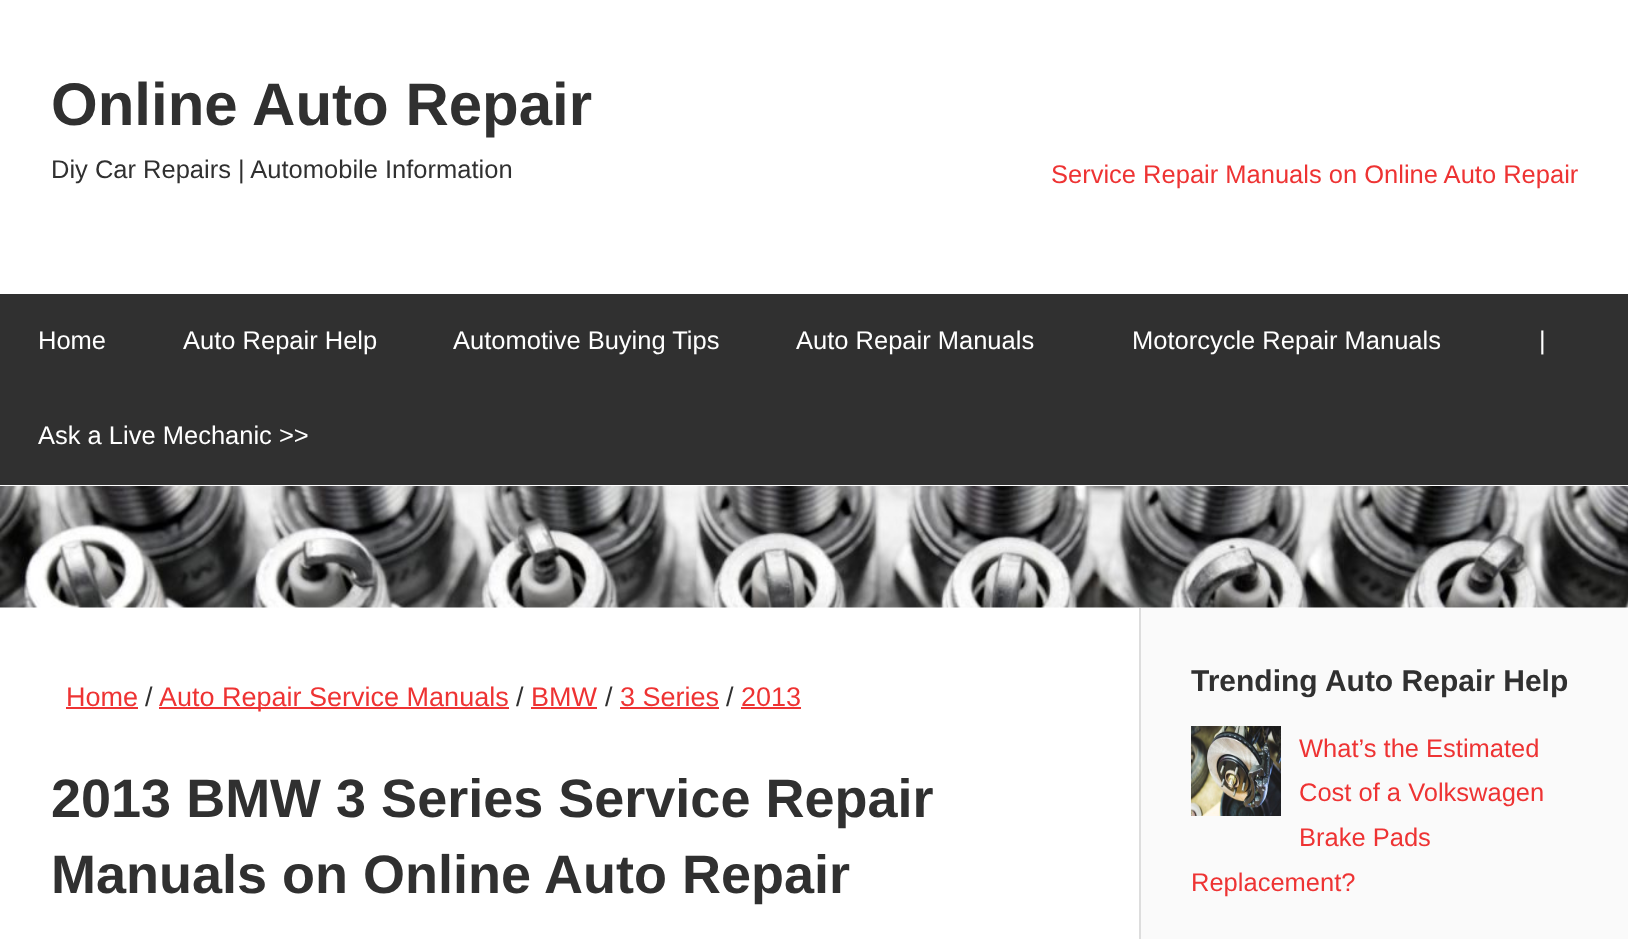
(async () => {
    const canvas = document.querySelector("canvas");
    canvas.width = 1628;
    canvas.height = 939;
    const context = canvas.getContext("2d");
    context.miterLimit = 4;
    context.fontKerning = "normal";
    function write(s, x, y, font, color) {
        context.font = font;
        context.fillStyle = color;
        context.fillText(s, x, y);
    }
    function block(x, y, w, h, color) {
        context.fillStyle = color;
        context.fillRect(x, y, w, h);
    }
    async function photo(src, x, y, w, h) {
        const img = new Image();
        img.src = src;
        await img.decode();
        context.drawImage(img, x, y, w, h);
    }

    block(0, 0, 1628, 939, "rgb(255, 255, 255)");
    write("Online Auto Repair", 51, 125, "bold 60px Liberation Sans", "rgb(48, 48, 48)");
    write("Diy Car Repairs | Automobile Information", 51, 178, "25.5px Liberation Sans", "rgb(48, 48, 48)");
    write("Service Repair Manuals on Online Auto Repair", 1051, 183, "25.5px Liberation Sans", "rgb(238, 51, 51)");
    block(0, 294, 1628, 191, "rgb(48, 48, 48)");
    write("Home", 38, 349, "25.5px Liberation Sans", "rgb(255, 255, 255)");
    write("Auto Repair Help", 183, 349, "25.5px Liberation Sans", "rgb(255, 255, 255)");
    write("Automotive Buying Tips", 453, 349, "25.5px Liberation Sans", "rgb(255, 255, 255)");
    write("Auto Repair Manuals", 796, 349, "25.5px Liberation Sans", "rgb(255, 255, 255)");
    write("Motorcycle Repair Manuals", 1132, 349, "25.5px Liberation Sans", "rgb(255, 255, 255)");
    write("|", 1539, 349, "25.5px Liberation Sans", "rgb(255, 255, 255)");
    write("Ask a Live Mechanic >>", 38, 444, "25.5px Liberation Sans", "rgb(255, 255, 255)");
    await photo("media/1.png", 0, 486, 1628, 122);
    write("Home", 66, 706, "27px Liberation Sans", "rgb(238, 51, 51)");
    block(66, 707, 72, 2, "rgb(238, 51, 51)");
    write("/", 145, 706, "27px Liberation Sans", "rgb(48, 48, 48)");
    block(159, 707, 350, 2, "rgb(238, 51, 51)");
    write("Auto Repair Service Manuals", 159, 706, "27px Liberation Sans", "rgb(238, 51, 51)");
    write("/", 516, 706, "27px Liberation Sans", "rgb(48, 48, 48)");
    write("BMW", 531, 706, "27px Liberation Sans", "rgb(238, 51, 51)");
    block(531, 707, 66, 2, "rgb(238, 51, 51)");
    write("/", 605, 706, "27px Liberation Sans", "rgb(48, 48, 48)");
    write("3 Series", 620, 706, "27px Liberation Sans", "rgb(238, 51, 51)");
    block(620, 707, 99, 2, "rgb(238, 51, 51)");
    write("/", 726, 706, "27px Liberation Sans", "rgb(48, 48, 48)");
    write("2013", 741, 706, "27px Liberation Sans", "rgb(238, 51, 51)");
    block(741, 707, 60, 2, "rgb(238, 51, 51)");
    write("2013 BMW 3 Series Service Repair", 51, 817, "bold 54px Liberation Sans", "rgb(48, 48, 48)");
    write("Manuals on Online Auto Repair", 51, 893, "bold 54px Liberation Sans", "rgb(48, 48, 48)");
    block(1141, 608, 487, 331, "rgb(250, 250, 250)");
    block(1139, 608, 2, 331, "rgb(221, 221, 221)");
    write("Trending Auto Repair Help", 1191, 691, "bold 30px Liberation Sans", "rgb(48, 48, 48)");
    await photo("media/2.png", 1191, 726, 90, 90);
    write("What’s the Estimated", 1299, 757, "25.5px Liberation Sans", "rgb(238, 51, 51)");
    write("Cost of a Volkswagen", 1299, 801, "25.5px Liberation Sans", "rgb(238, 51, 51)");
    write("Brake Pads", 1299, 846, "25.5px Liberation Sans", "rgb(238, 51, 51)");
    write("Replacement?", 1191, 891, "25.5px Liberation Sans", "rgb(238, 51, 51)");
})();
